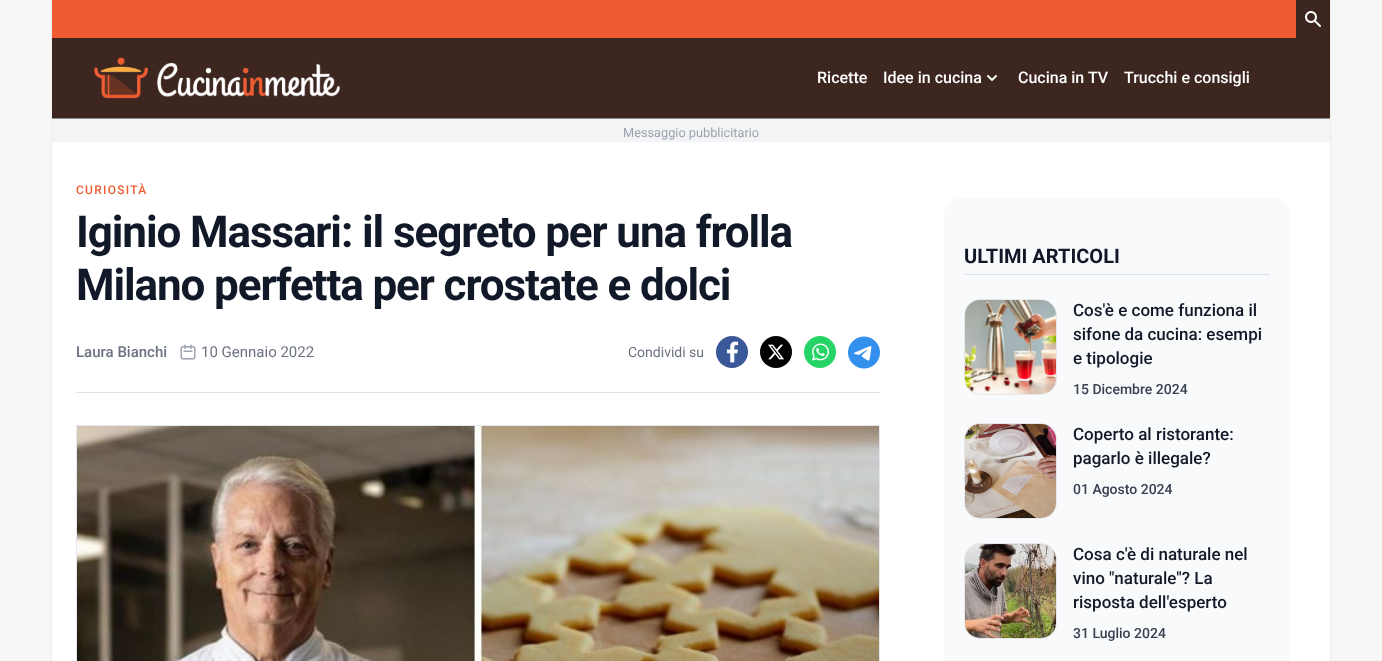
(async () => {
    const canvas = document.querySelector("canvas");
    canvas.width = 1382;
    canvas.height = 661;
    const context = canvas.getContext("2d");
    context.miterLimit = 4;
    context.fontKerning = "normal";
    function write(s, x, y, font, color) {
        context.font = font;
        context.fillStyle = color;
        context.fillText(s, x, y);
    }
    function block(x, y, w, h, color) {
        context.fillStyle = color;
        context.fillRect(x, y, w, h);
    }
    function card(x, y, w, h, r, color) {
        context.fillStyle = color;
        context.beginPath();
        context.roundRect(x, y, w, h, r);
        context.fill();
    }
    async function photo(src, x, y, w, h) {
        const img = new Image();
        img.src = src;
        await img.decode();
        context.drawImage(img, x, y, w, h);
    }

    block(0, 0, 1382, 661, "rgb(247, 247, 247)");
    block(52, 142, 1278, 519, "rgb(255, 255, 255)");
    block(1330, 0, 1, 661, "rgb(236, 236, 236)");
    block(51, 0, 1, 661, "rgb(236, 236, 236)");
    block(52, 38, 1278, 80, "rgb(61, 38, 31)");
    block(52, 118, 1278, 1, "rgb(150, 143, 144)");
    block(52, 0, 1244, 38, "rgb(239, 92, 49)");
    block(1296, 0, 34, 38, "rgb(61, 38, 31)");
    await photo("media/1.png", 1305, 11, 16, 16);
    await photo("media/2.png", 93, 57, 248, 42);
    write("Ricette", 817, 83, "500 16px Roboto", "rgb(255, 255, 255)");
    write("Idee in cucina", 883, 83, "500 16px Roboto", "rgb(255, 255, 255)");
    await photo("media/3.png", 987, 75, 10, 6);
    write("Cucina in TV", 1018, 83, "500 16px Roboto", "rgb(255, 255, 255)");
    write("Trucchi e consigli", 1124, 83, "500 16px Roboto", "rgb(255, 255, 255)");
    block(52, 119, 1278, 23, "rgb(243, 244, 246)");
    write("Messaggio pubblicitario", 623, 137, "12.75px Roboto", "rgb(156, 163, 175)");
    block(76, 392, 804, 1, "rgb(223, 226, 230)");
    context.letterSpacing = "1.25px";
    write("CURIOSITÀ", 76, 194, "500 12px Roboto", "rgb(239, 92, 49)");
    context.letterSpacing = "-1.1px";
    write("Iginio Massari: il segreto per una frolla", 76, 247, "bold 44px Roboto", "rgb(17, 24, 39)");
    write("Milano perfetta per crostate e dolci", 76, 300, "bold 44px Roboto", "rgb(17, 24, 39)");
    context.letterSpacing = "0px";
    write("Laura Bianchi", 76, 357, "500 15px Roboto", "rgb(107, 114, 128)");
    await photo("media/4.png", 180, 344, 16, 16);
    write("10 Gennaio 2022", 201, 357, "15px Roboto", "rgb(107, 114, 128)");
    write("Condividi su", 628, 357, "14px Roboto", "rgb(107, 114, 128)");
    context.fillStyle = "rgb(59, 89, 152)";
    context.beginPath();
    context.arc(732, 352, 16, 0, Math.PI * 2);
    context.fill();
    await photo("media/5.png", 726, 341, 13, 22);
    context.fillStyle = "rgb(0, 0, 0)";
    context.beginPath();
    context.arc(776, 352, 16, 0, Math.PI * 2);
    context.fill();
    await photo("media/6.png", 768, 344, 16, 16);
    context.fillStyle = "rgb(37, 211, 102)";
    context.beginPath();
    context.arc(820, 352, 16, 0, Math.PI * 2);
    context.fill();
    await photo("media/7.png", 812, 343, 17, 18);
    await photo("media/8.png", 848, 336, 32, 33);
    context.strokeStyle = "rgb(229, 231, 235)";
    context.strokeRect(76.5, 425.5, 803, 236);
    await photo("media/9.png", 77, 426, 802, 235);
    card(944, 198, 346, 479, 16, "rgb(249, 250, 251)");
    block(964, 274, 306, 1, "rgb(221, 224, 229)");
    write("ULTIMI ARTICOLI", 964, 263, "bold 20px Roboto", "rgb(17, 24, 39)");
    context.beginPath();
    context.roundRect(964.5, 299.5, 92, 95, 15.5);
    context.stroke();
    await photo("media/10.png", 965, 300, 91, 94);
    write("Cos'è e come funziona il", 1073, 316, "500 17px Roboto", "rgb(17, 24, 39)");
    write("sifone da cucina: esempi", 1073, 340, "500 17px Roboto", "rgb(17, 24, 39)");
    write("e tipologie", 1073, 364, "500 17px Roboto", "rgb(17, 24, 39)");
    write("15 Dicembre 2024", 1073, 394, "500 14px Roboto", "rgb(55, 65, 81)");
    context.beginPath();
    context.roundRect(964.5, 423.5, 92, 95, 15.5);
    context.stroke();
    await photo("media/11.png", 965, 424, 91, 94);
    write("Coperto al ristorante:", 1073, 440, "500 17px Roboto", "rgb(17, 24, 39)");
    write("pagarlo è illegale?", 1073, 464, "500 17px Roboto", "rgb(17, 24, 39)");
    write("01 Agosto 2024", 1073, 494, "500 14px Roboto", "rgb(55, 65, 81)");
    context.beginPath();
    context.roundRect(964.5, 543.5, 92, 95, 15.5);
    context.stroke();
    await photo("media/12.png", 965, 544, 91, 94);
    write("Cosa c'è di naturale nel", 1073, 560, "500 17px Roboto", "rgb(17, 24, 39)");
    write("vino \"naturale\"? La", 1073, 584, "500 17px Roboto", "rgb(17, 24, 39)");
    write("risposta dell'esperto", 1073, 608, "500 17px Roboto", "rgb(17, 24, 39)");
    write("31 Luglio 2024", 1073, 638, "500 14px Roboto", "rgb(55, 65, 81)");
})();
